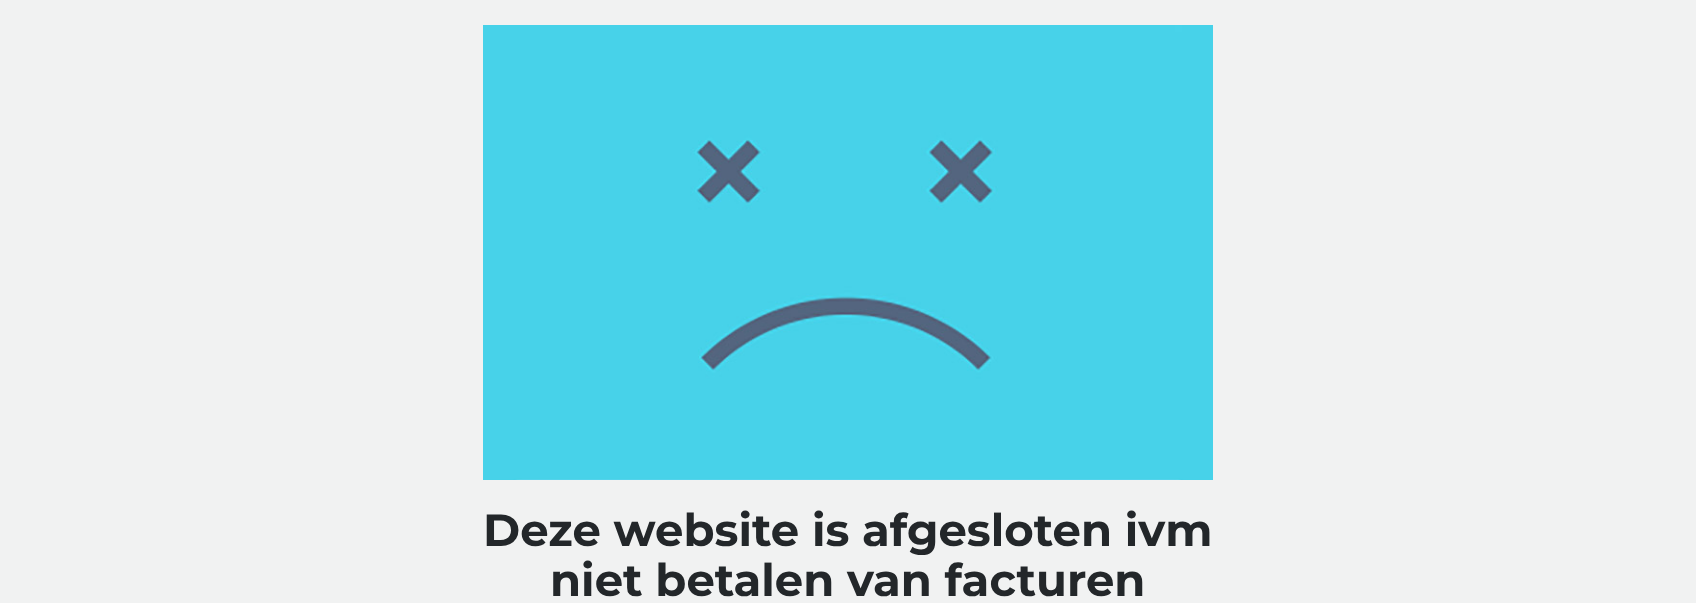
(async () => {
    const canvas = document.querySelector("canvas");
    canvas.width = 1696;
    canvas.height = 603;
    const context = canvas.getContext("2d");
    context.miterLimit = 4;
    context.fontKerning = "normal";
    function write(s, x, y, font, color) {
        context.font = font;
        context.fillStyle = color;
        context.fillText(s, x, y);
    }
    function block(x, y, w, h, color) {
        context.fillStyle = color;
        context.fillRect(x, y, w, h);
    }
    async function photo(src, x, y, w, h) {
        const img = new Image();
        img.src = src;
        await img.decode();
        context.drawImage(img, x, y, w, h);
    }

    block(0, 0, 1696, 603, "rgb(241, 242, 242)");
    await photo("media/1.png", 483, 25, 730, 455);
    write("Deze website is afgesloten ivm", 483, 546, "100 45px Montserrat", "rgb(35, 39, 42)");
    write("niet betalen van facturen", 550, 596, "100 45px Montserrat", "rgb(35, 39, 42)");
})();
